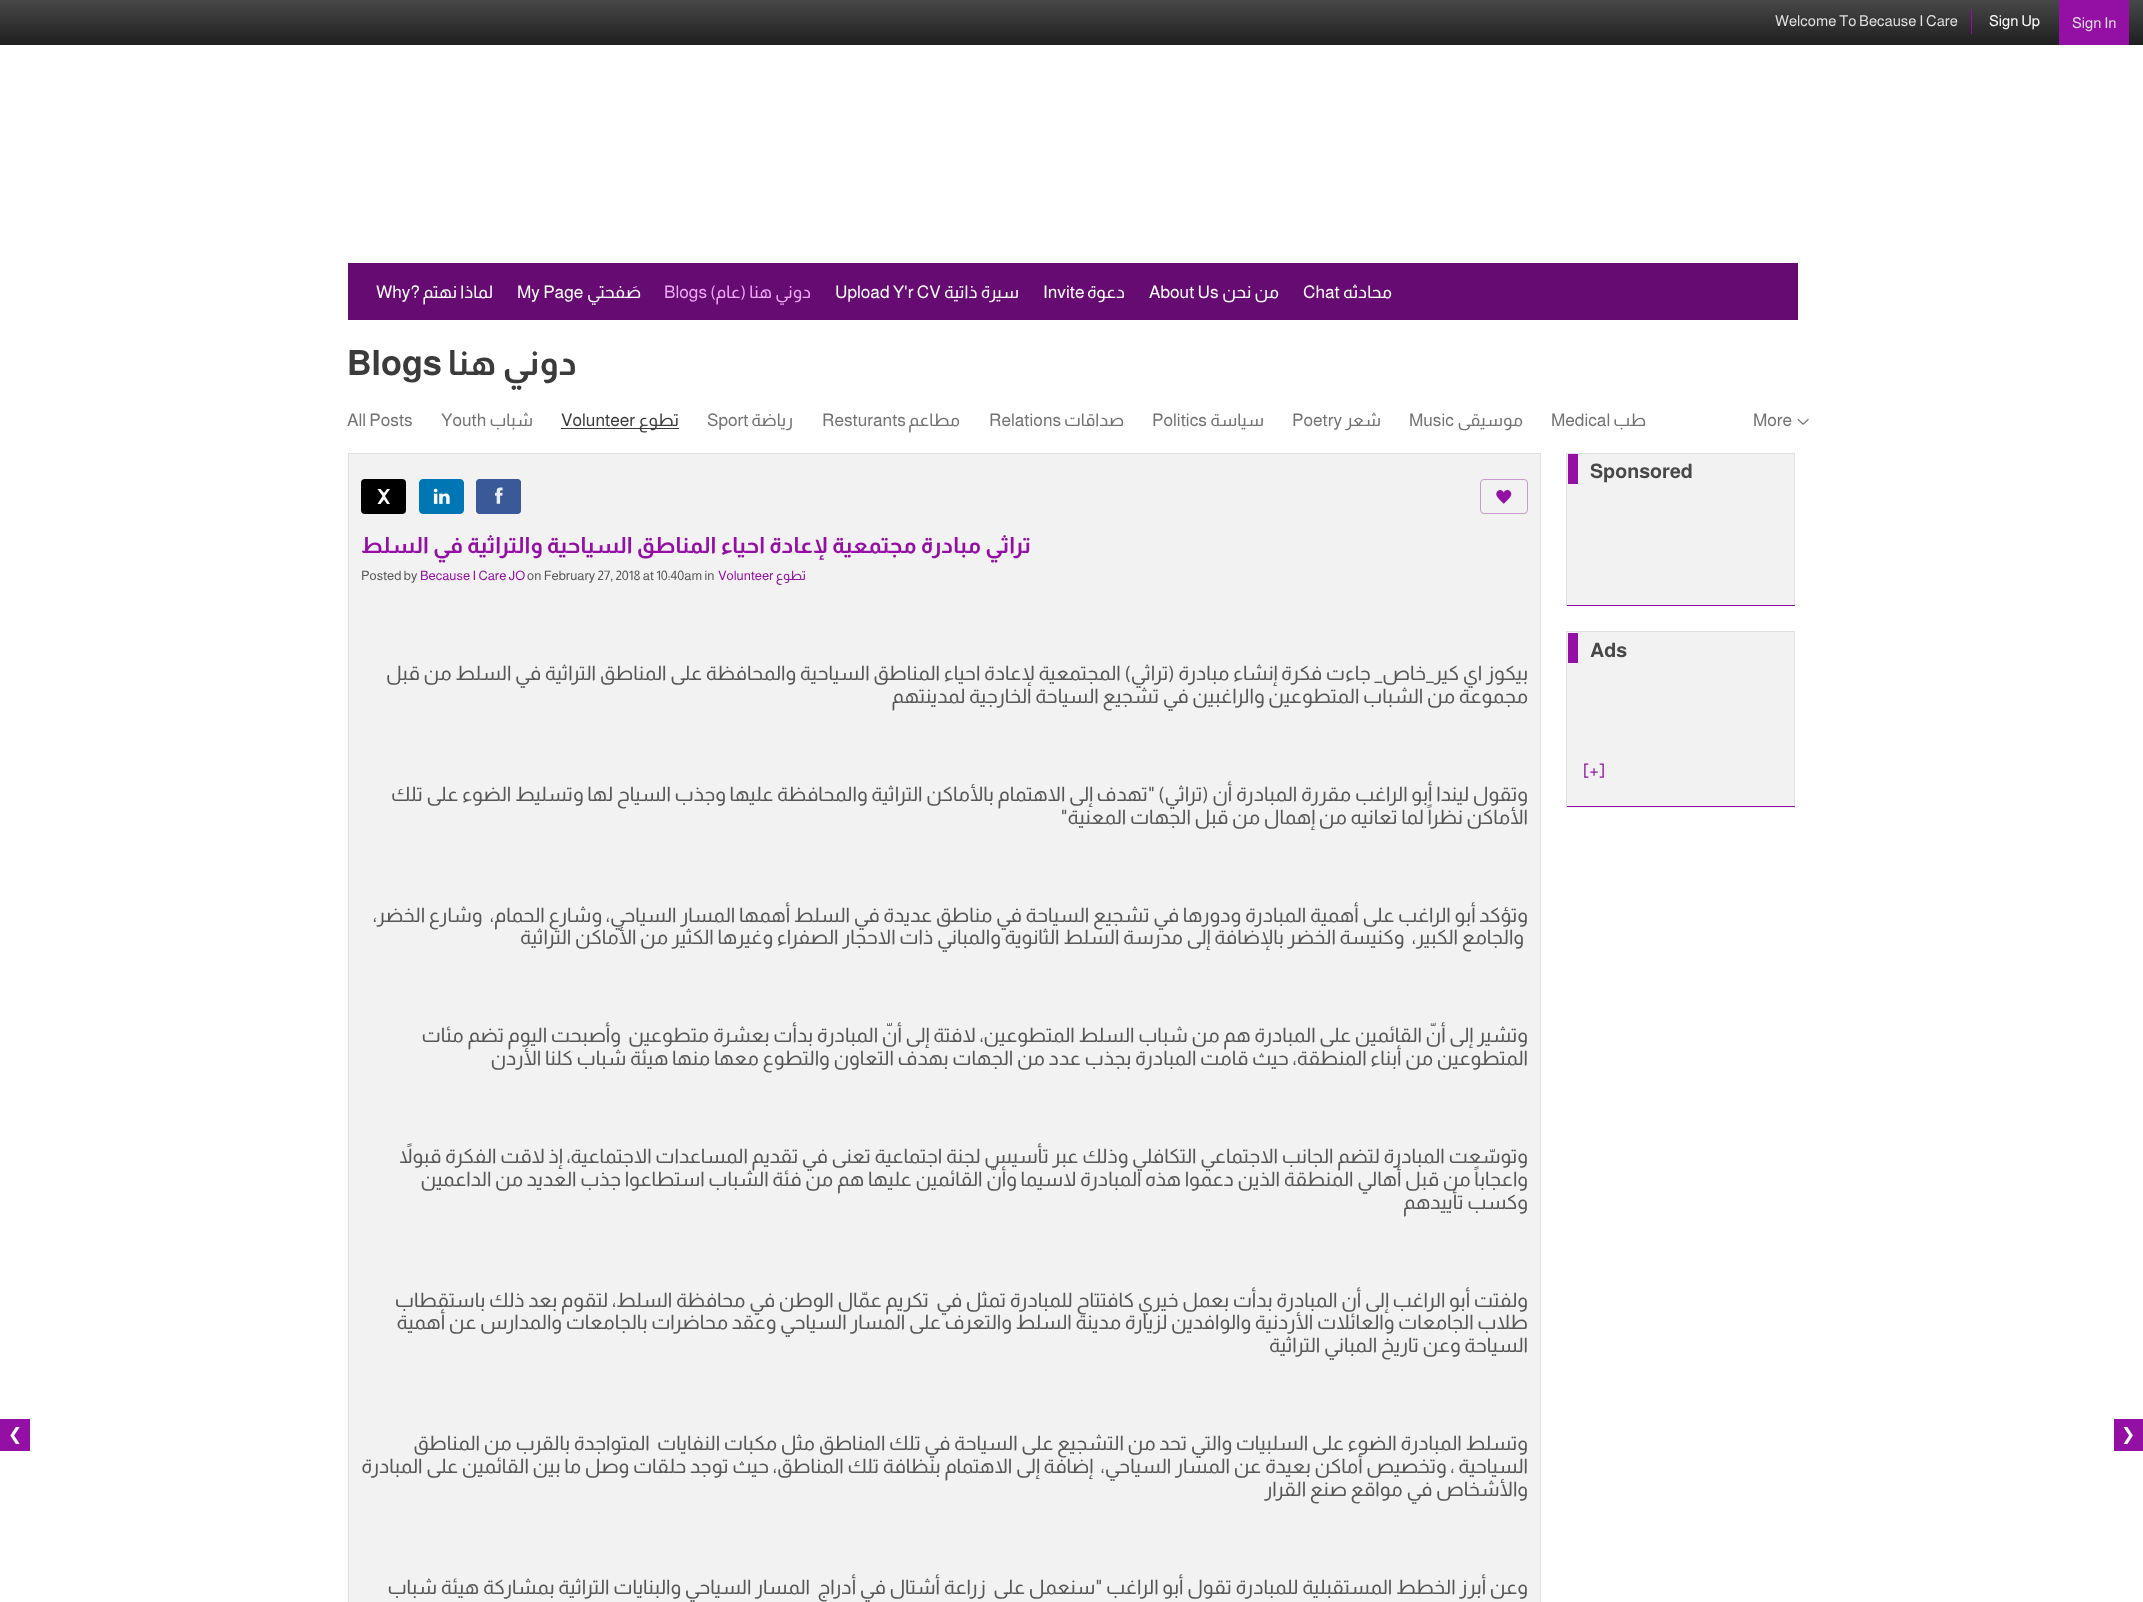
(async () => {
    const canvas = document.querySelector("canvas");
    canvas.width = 2143;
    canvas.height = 1602;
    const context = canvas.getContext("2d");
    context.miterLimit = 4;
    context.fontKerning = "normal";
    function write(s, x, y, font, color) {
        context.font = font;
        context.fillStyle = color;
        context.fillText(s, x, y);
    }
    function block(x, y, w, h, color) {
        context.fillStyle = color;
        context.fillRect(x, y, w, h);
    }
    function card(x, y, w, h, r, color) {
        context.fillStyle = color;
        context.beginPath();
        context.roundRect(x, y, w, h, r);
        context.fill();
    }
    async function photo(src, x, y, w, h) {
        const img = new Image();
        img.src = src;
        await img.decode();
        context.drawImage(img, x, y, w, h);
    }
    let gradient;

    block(0, 0, 2143, 1602, "rgb(255, 255, 255)");
    gradient = context.createLinearGradient(1072, 0, 1072, 45);
    gradient.addColorStop(0, "rgb(72, 72, 72)");
    gradient.addColorStop(1, "rgb(31, 31, 31)");
    context.fillStyle = gradient;
    context.fillRect(0, 0, 2143, 45);
    block(2059, 0, 70, 45, "rgb(148, 16, 165)");
    write("Sign In", 2072, 28, "15px Almarai", "rgb(223, 223, 223)");
    write("Sign Up", 1989, 26, "15px Almarai", "rgb(255, 255, 255)");
    block(1971, 9, 1, 25, "rgb(148, 16, 165)");
    write("Welcome To Because I Care", 1775, 26, "15px Almarai", "rgb(223, 223, 223)");
    block(348, 263, 1450, 57, "rgb(102, 11, 114)");
    context.direction = "rtl";
    write("محادثه", 1392, 298, "17.5px Almarai", "rgb(255, 255, 255)");
    context.direction = "ltr";
    write("Chat", 1303, 298, "17.5px Almarai", "rgb(255, 255, 255)");
    context.direction = "rtl";
    write("من نحن", 1279, 298, "17.5px Almarai", "rgb(255, 255, 255)");
    context.direction = "ltr";
    write("About Us", 1149, 298, "17.5px Almarai", "rgb(255, 255, 255)");
    context.direction = "rtl";
    write("دعوة", 1125, 298, "17.5px Almarai", "rgb(255, 255, 255)");
    context.direction = "ltr";
    write("Invite", 1043, 298, "17.5px Almarai", "rgb(255, 255, 255)");
    context.direction = "rtl";
    write("سيرة ذاتية", 1019, 298, "17.5px Almarai", "rgb(255, 255, 255)");
    context.direction = "ltr";
    write("Upload Y'r CV", 835, 298, "17.5px Almarai", "rgb(255, 255, 255)");
    context.direction = "rtl";
    write("دوني هنا (عام", 811, 298, "17.5px Almarai", "rgb(237, 169, 246)");
    context.direction = "ltr";
    write("Blogs (", 664, 298, "17.5px Almarai", "rgb(237, 169, 246)");
    context.direction = "rtl";
    write("صَفحتي", 641, 298, "17.5px Almarai", "rgb(255, 255, 255)");
    context.direction = "ltr";
    write("My Page", 517, 298, "17.5px Almarai", "rgb(255, 255, 255)");
    context.direction = "rtl";
    write("لماذا نهتم", 493, 298, "17.5px Almarai", "rgb(255, 255, 255)");
    context.direction = "ltr";
    write("Why?", 376, 298, "17.5px Almarai", "rgb(255, 255, 255)");
    context.direction = "rtl";
    write("دوني هنا", 577, 375, "bold 35px Almarai", "rgb(59, 59, 59)");
    context.direction = "ltr";
    write("Blogs", 347, 375, "bold 35px Almarai", "rgb(59, 59, 59)");
    await photo("media/1.png", 1797, 418, 12, 7);
    write("More", 1753, 426, "17.5px Almarai", "rgb(115, 115, 115)");
    context.direction = "rtl";
    write("طب", 1646, 426, "17.5px Almarai", "rgb(115, 115, 115)");
    context.direction = "ltr";
    write("Medical", 1551, 426, "17.5px Almarai", "rgb(115, 115, 115)");
    context.direction = "rtl";
    write("موسيقى", 1523, 426, "17.5px Almarai", "rgb(115, 115, 115)");
    context.direction = "ltr";
    write("Music", 1409, 426, "17.5px Almarai", "rgb(115, 115, 115)");
    context.direction = "rtl";
    write("شعر", 1381, 426, "17.5px Almarai", "rgb(115, 115, 115)");
    context.direction = "ltr";
    write("Poetry", 1292, 426, "17.5px Almarai", "rgb(115, 115, 115)");
    context.direction = "rtl";
    write("سياسة", 1264, 426, "17.5px Almarai", "rgb(115, 115, 115)");
    context.direction = "ltr";
    write("Politics", 1152, 426, "17.5px Almarai", "rgb(115, 115, 115)");
    context.direction = "rtl";
    write("صداقات", 1124, 426, "17.5px Almarai", "rgb(115, 115, 115)");
    context.direction = "ltr";
    write("Relations", 989, 426, "17.5px Almarai", "rgb(115, 115, 115)");
    context.direction = "rtl";
    write("مطاعم", 960, 426, "17.5px Almarai", "rgb(115, 115, 115)");
    context.direction = "ltr";
    write("Resturants", 822, 426, "17.5px Almarai", "rgb(115, 115, 115)");
    context.direction = "rtl";
    write("رياضة", 793, 426, "17.5px Almarai", "rgb(115, 115, 115)");
    context.direction = "ltr";
    write("Sport", 707, 426, "17.5px Almarai", "rgb(115, 115, 115)");
    block(561, 428, 118, 1, "rgb(59, 59, 59)");
    context.direction = "rtl";
    write("تطوع", 679, 426, "17.5px Almarai", "rgb(59, 59, 59)");
    context.direction = "ltr";
    write("Volunteer", 561, 426, "17.5px Almarai", "rgb(59, 59, 59)");
    context.direction = "rtl";
    write("شباب", 533, 426, "17.5px Almarai", "rgb(115, 115, 115)");
    context.direction = "ltr";
    write("Youth", 441, 426, "17.5px Almarai", "rgb(115, 115, 115)");
    write("All Posts", 347, 426, "17.5px Almarai", "rgb(115, 115, 115)");
    block(1567, 454, 227, 151, "rgb(242, 242, 242)");
    block(1566, 453, 229, 1, "rgb(223, 223, 223)");
    block(1794, 453, 1, 153, "rgb(223, 223, 223)");
    block(1566, 605, 229, 1, "rgb(148, 16, 165)");
    block(1566, 453, 1, 153, "rgb(223, 223, 223)");
    block(1568, 454, 10, 30, "rgb(148, 16, 165)");
    write("Sponsored", 1590, 478, "bold 20px Almarai", "rgb(72, 72, 72)");
    block(1567, 632, 227, 176, "rgb(242, 242, 242)");
    block(1566, 631, 229, 1, "rgb(223, 223, 223)");
    block(1794, 631, 1, 177, "rgb(223, 223, 223)");
    block(1566, 806, 229, 1, "rgb(148, 16, 165)");
    block(1566, 631, 1, 177, "rgb(223, 223, 223)");
    block(1568, 633, 10, 30, "rgb(148, 16, 165)");
    write("Ads", 1590, 657, "bold 20px Almarai", "rgb(72, 72, 72)");
    write("[+]", 1583, 776, "17.5px Almarai", "rgb(148, 16, 165)");
    block(2114, 1419, 29, 32, "rgb(148, 16, 165)");
    write("❯", 2121, 1440, "17px DejaVu Sans", "rgb(255, 255, 255)");
    block(0, 1419, 30, 32, "rgb(148, 16, 165)");
    write("❮", 8, 1440, "17px DejaVu Sans", "rgb(255, 255, 255)");
    block(349, 454, 1191, 1148, "rgb(242, 242, 242)");
    block(348, 453, 1193, 1, "rgb(223, 223, 223)");
    block(1540, 453, 1, 1149, "rgb(223, 223, 223)");
    block(348, 453, 1, 1149, "rgb(223, 223, 223)");
    context.beginPath();
    context.roundRect(1480.5, 479.5, 47, 34, 3.5);
    context.strokeStyle = "rgb(204, 152, 211)";
    context.stroke();
    await photo("media/2.png", 1496, 490, 16, 14);
    card(476, 479, 45, 35, 4, "rgb(59, 89, 152)");
    await photo("media/3.png", 476, 479, 45, 35);
    await photo("media/4.png", 419, 479, 45, 35);
    card(361, 479, 45, 35, 4, "rgb(0, 0, 0)");
    context.fillStyle = "rgb(255, 255, 255)";
    context.beginPath();
    context.moveTo(377.5, 489);
    context.lineTo(382.5, 496);
    context.lineTo(377.5, 504);
    context.lineTo(380.5, 504);
    context.lineTo(384, 499.5);
    context.lineTo(387, 504);
    context.lineTo(390, 504);
    context.lineTo(385, 496);
    context.lineTo(390, 489);
    context.lineTo(387, 489);
    context.lineTo(384, 493);
    context.lineTo(380.5, 489);
    context.closePath();
    context.fill("evenodd");
    context.direction = "rtl";
    write("تراثي مبادرة مجتمعية لإعادة احياء المناطق السياحية والتراثية في السلط", 1031, 553, "bold 22.5px Almarai", "rgb(148, 16, 165)");
    write("تطوع", 806, 580, "13.1px Almarai", "rgb(148, 16, 165)");
    context.direction = "ltr";
    write("Volunteer", 718, 580, "13.1px Almarai", "rgb(148, 16, 165)");
    write("on February 27, 2018 at 10:40am in", 527, 580, "13.1px Almarai", "rgb(87, 87, 87)");
    write("Because I Care JO", 420, 580, "13.1px Almarai", "rgb(148, 16, 165)");
    write("Posted by", 361, 580, "13.1px Almarai", "rgb(87, 87, 87)");
    context.direction = "rtl";
    write("بيكوز اي كير_خاص_ جاءت فكرة إنشاء مبادرة (تراثي) المجتمعية لإعادة احياء المناطق السياحية والمحافظة على المناطق التراثية في السلط من قبل", 1528, 680, "20px Almarai", "rgb(87, 87, 87)");
    write("مجموعة من الشباب المتطوعين والراغبين في تشجيع السياحة الخارجية لمدينتهم", 1528, 703, "20px Almarai", "rgb(87, 87, 87)");
    write("وتقول ليندا أبو الراغب مقررة المبادرة أن (تراثي) \"تهدف إلى الاهتمام بالأماكن التراثية والمحافظة عليها وجذب السياح لها وتسليط الضوء على تلك", 1528, 801, "20px Almarai", "rgb(87, 87, 87)");
    write("الأماكن نظراً لما تعانيه من إهمال من قبل الجهات المعنية\"", 1528, 824, "20px Almarai", "rgb(87, 87, 87)");
    write("وتؤكد أبو الراغب على أهمية المبادرة ودورها في تشجيع السياحة في مناطق عديدة في السلط أهمها المسار السياحي، وشارع الحمام،  وشارع الخضر،", 1528, 922, "20px Almarai", "rgb(87, 87, 87)");
    write("والجامع الكبير،  وكنيسة الخضر بالإضافة إلى مدرسة السلط الثانوية والمباني ذات الاحجار الصفراء وغيرها الكثير من الأماكن التراثية", 1524, 944, "20px Almarai", "rgb(87, 87, 87)");
    write("وتشير إلى أنّ القائمين على المبادرة هم من شباب السلط المتطوعين، لافتة إلى أنّ المبادرة بدأت بعشرة متطوعين  وأصبحت اليوم تضم مئات", 1528, 1042, "20px Almarai", "rgb(87, 87, 87)");
    write("المتطوعين من أبناء المنطقة، حيث قامت المبادرة بجذب عدد من الجهات بهدف التعاون والتطوع معها منها هيئة شباب كلنا الأردن", 1528, 1065, "20px Almarai", "rgb(87, 87, 87)");
    write("وتوسّعت المبادرة لتضم الجانب الاجتماعي التكافلي وذلك عبر تأسيس لجنة اجتماعية تعنى في تقديم المساعدات الاجتماعية، إذ لاقت الفكرة قبولاً", 1528, 1163, "20px Almarai", "rgb(87, 87, 87)");
    write("واعجاباً من قبل أهالي المنطقة الذين دعموا هذه المبادرة لاسيما وأنّ القائمين عليها هم من فئة الشباب استطاعوا جذب العديد من الداعمين", 1528, 1186, "20px Almarai", "rgb(87, 87, 87)");
    write("وكسب تأييدهم", 1528, 1209, "20px Almarai", "rgb(87, 87, 87)");
    write("ولفتت أبو الراغب إلى أن المبادرة بدأت بعمل خيري كافتتاح للمبادرة تمثل في  تكريم عمّال الوطن في محافظة السلط، لتقوم بعد ذلك باستقطاب", 1528, 1307, "20px Almarai", "rgb(87, 87, 87)");
    write("طلاب الجامعات والعائلات الأردنية والوافدين لزيارة مدينة السلط والتعرف على المسار السياحي وعقد محاضرات بالجامعات والمدارس عن أهمية", 1528, 1329, "20px Almarai", "rgb(87, 87, 87)");
    write("السياحة وعن تاريخ المباني التراثية", 1528, 1352, "20px Almarai", "rgb(87, 87, 87)");
    write("وتسلط المبادرة الضوء على السلبيات والتي تحد من التشجيع على السياحة في تلك المناطق مثل مكبات النفايات  المتواجدة بالقرب من المناطق", 1528, 1450, "20px Almarai", "rgb(87, 87, 87)");
    write("السياحية ، وتخصيص أماكن بعيدة عن المسار السياحي،  إضافة إلى الاهتمام بنظافة تلك المناطق، حيث توجد حلقات وصل ما بين القائمين على المبادرة", 1528, 1473, "20px Almarai", "rgb(87, 87, 87)");
    write("والأشخاص في مواقع صنع القرار", 1528, 1496, "20px Almarai", "rgb(87, 87, 87)");
    write("وعن أبرز الخطط المستقبلية للمبادرة تقول أبو الراغب \"سنعمل على  زراعة أشتال في أدراج  المسار السياحي والبنايات التراثية بمشاركة هيئة شباب", 1528, 1594, "20px Almarai", "rgb(87, 87, 87)");
})();
